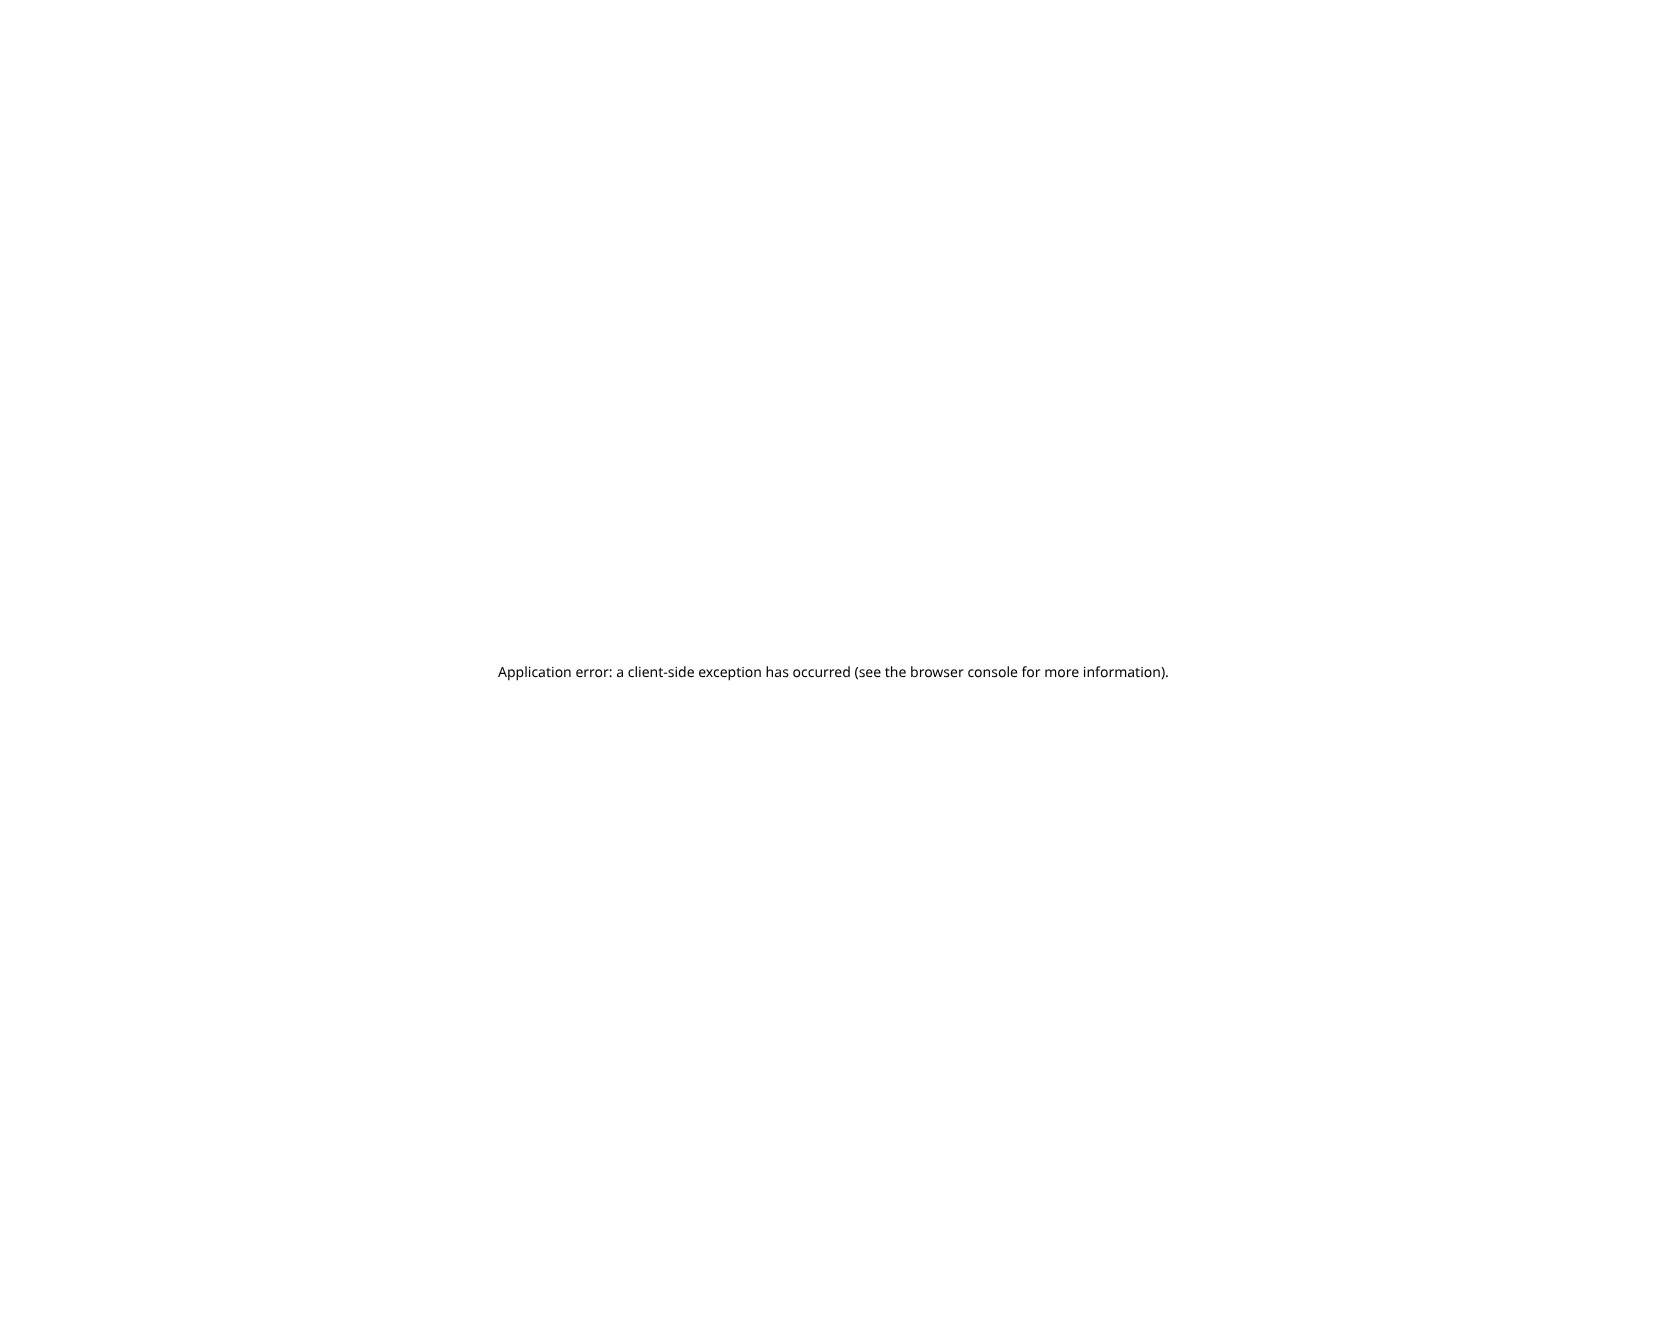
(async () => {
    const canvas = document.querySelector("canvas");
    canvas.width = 1675;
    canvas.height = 1343;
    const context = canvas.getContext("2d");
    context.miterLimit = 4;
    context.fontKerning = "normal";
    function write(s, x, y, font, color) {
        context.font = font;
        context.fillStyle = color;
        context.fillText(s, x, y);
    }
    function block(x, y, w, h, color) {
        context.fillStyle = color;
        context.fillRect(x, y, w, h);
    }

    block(0, 0, 1675, 1343, "rgb(255, 255, 255)");
    write("Application error: a client-side exception has occurred (see the browser console for more information).", 498, 677, "14px Noto Sans", "rgb(0, 0, 0)");
})();
